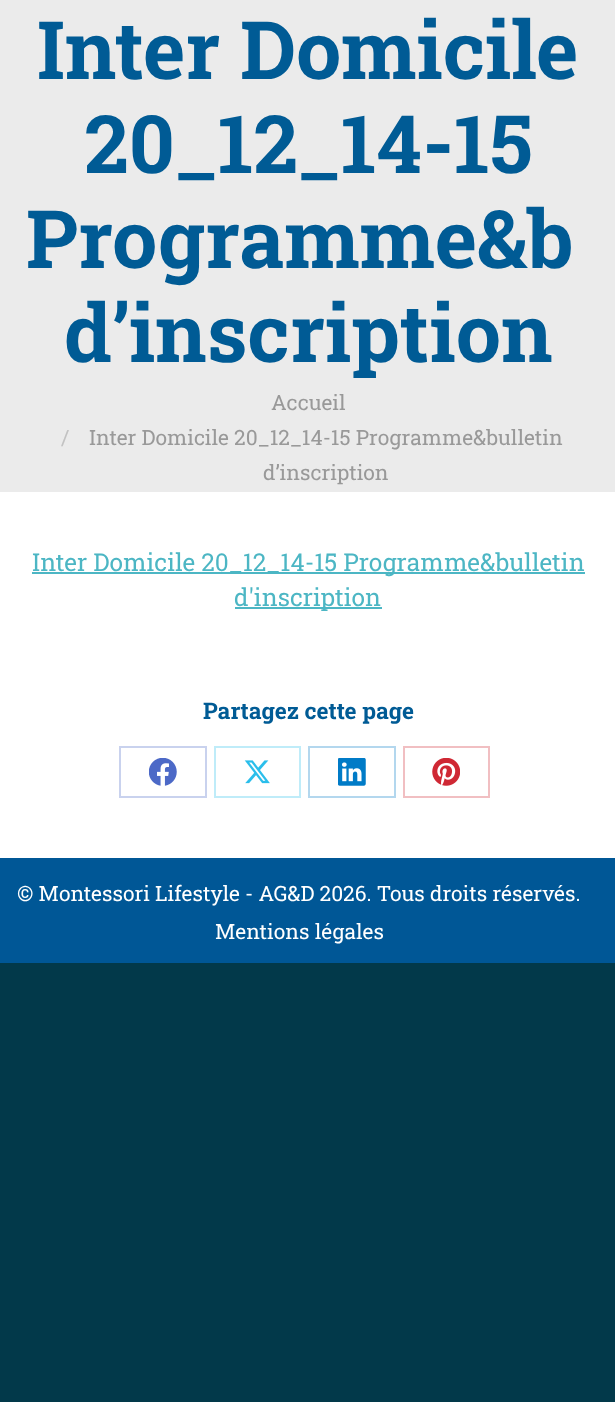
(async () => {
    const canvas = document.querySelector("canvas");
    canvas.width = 615;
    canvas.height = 1402;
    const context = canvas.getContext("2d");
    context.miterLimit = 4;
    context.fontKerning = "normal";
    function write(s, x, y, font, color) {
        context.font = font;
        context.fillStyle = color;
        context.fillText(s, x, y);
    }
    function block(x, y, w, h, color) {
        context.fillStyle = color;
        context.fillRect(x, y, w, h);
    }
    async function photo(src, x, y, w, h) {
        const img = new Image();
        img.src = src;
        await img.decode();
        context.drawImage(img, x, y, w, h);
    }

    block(0, 0, 615, 1402, "rgb(2, 57, 74)");
    block(0, 492, 615, 366, "rgb(255, 255, 255)");
    block(0, 0, 615, 492, "rgb(235, 235, 235)");
    write("Inter Domicile", 37, 79, "bold 80.5px Roboto Slab", "rgb(0, 91, 149)");
    write("20_12_14-15", 84, 173, "bold 80.5px Roboto Slab", "rgb(0, 91, 149)");
    write("Programme&b", 26, 268, "bold 80.5px Roboto Slab", "rgb(0, 91, 149)");
    context.save();
    context.beginPath();
    context.rect(26, 0, 564, 378);
    context.clip();
    write("d’inscription", 64, 362, "bold 80.5px Roboto Slab", "rgb(0, 91, 149)");
    context.restore();
    write("Accueil", 271, 410, "21px Roboto Slab", "rgb(153, 153, 153)");
    write("/", 61, 445, "21px Roboto Slab", "rgb(194, 194, 194)");
    write("Inter Domicile 20_12_14-15 Programme&bulletin", 89, 445, "21px Roboto Slab", "rgb(153, 153, 153)");
    write("d’inscription", 263, 480, "21px Roboto Slab", "rgb(153, 153, 153)");
    block(32, 572, 553, 2, "rgb(76, 182, 196)");
    write("Inter Domicile 20_12_14-15 Programme&bulletin", 32, 571, "24.5px Roboto Slab", "rgb(76, 182, 196)");
    block(235, 607, 147, 2, "rgb(76, 182, 196)");
    write("d'inscription", 234, 606, "24.5px Roboto Slab", "rgb(76, 182, 196)");
    write("Partagez cette page", 203, 719, "bold 22.75px Roboto Slab", "rgb(0, 91, 149)");
    context.strokeStyle = "rgb(201, 210, 238)";
    context.lineWidth = 2;
    context.strokeRect(120, 747, 86, 50);
    await photo("media/1.png", 149, 758, 28, 28);
    context.strokeStyle = "rgb(191, 236, 249)";
    context.strokeRect(215, 747, 85, 50);
    await photo("media/2.png", 244, 760, 26, 24);
    context.strokeStyle = "rgb(179, 215, 238)";
    context.strokeRect(309, 747, 86, 50);
    await photo("media/3.png", 338, 758, 28, 28);
    context.strokeStyle = "rgb(241, 191, 194)";
    context.strokeRect(404, 747, 85, 50);
    await photo("media/4.png", 432, 758, 28, 28);
    block(0, 858, 615, 105, "rgb(0, 87, 150)");
    write("© Montessori Lifestyle - AG&D 2026. Tous droits réservés.", 17, 901, "21px Roboto Slab", "rgb(255, 255, 255)");
    write("Mentions légales", 215, 939, "21px Roboto Slab", "rgb(255, 255, 255)");
})();
